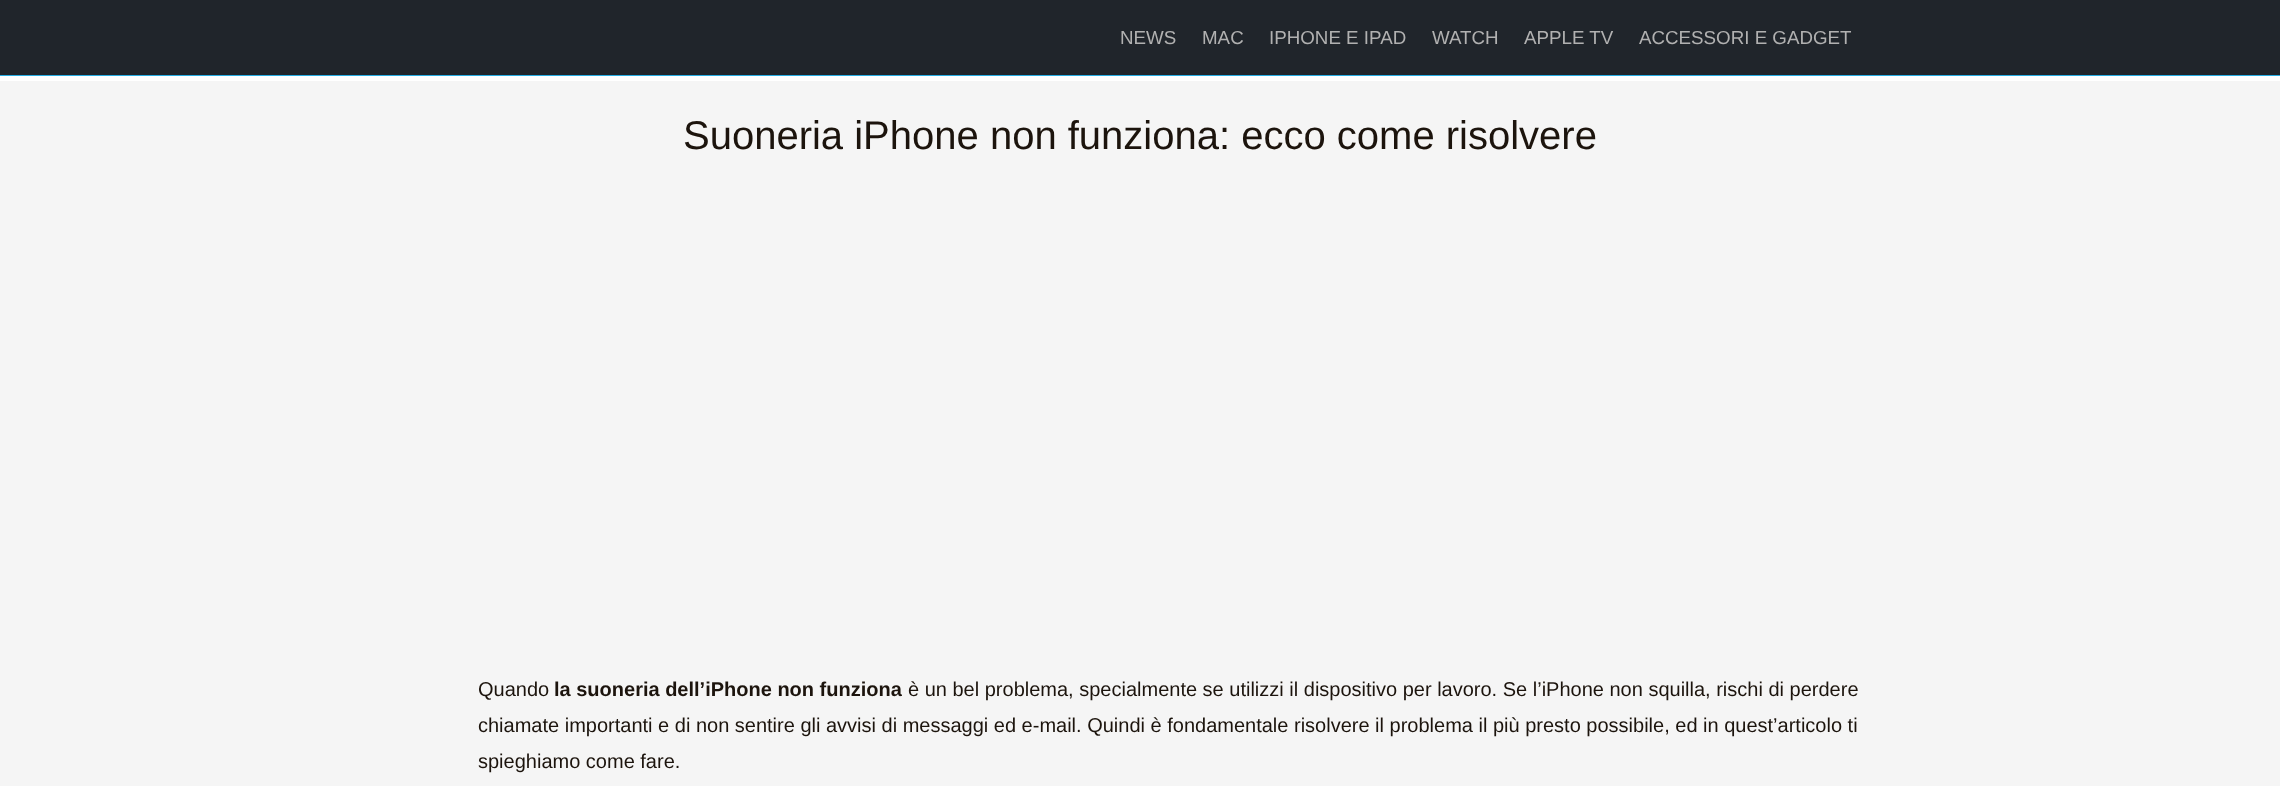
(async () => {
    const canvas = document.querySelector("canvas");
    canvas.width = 2280;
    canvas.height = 786;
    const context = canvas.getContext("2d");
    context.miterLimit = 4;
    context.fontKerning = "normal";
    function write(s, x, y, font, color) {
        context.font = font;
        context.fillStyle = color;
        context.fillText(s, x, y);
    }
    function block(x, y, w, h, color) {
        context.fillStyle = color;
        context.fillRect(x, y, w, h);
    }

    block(0, 0, 2280, 786, "rgb(255, 255, 255)");
    block(0, 81, 2280, 705, "rgb(245, 245, 245)");
    block(0, 0, 2280, 75, "rgb(32, 37, 43)");
    block(0, 75, 2280, 1, "rgb(38, 173, 228)");
    write("NEWS", 1120, 44, "18.75px Liberation Sans", "rgb(177, 177, 177)");
    write("MAC", 1202, 44, "18.75px Liberation Sans", "rgb(177, 177, 177)");
    write("IPHONE E IPAD", 1269, 44, "18.75px Liberation Sans", "rgb(177, 177, 177)");
    write("WATCH", 1432, 44, "18.75px Liberation Sans", "rgb(177, 177, 177)");
    write("APPLE TV", 1524, 44, "18.75px Liberation Sans", "rgb(177, 177, 177)");
    write("ACCESSORI E GADGET", 1639, 44, "18.75px Liberation Sans", "rgb(177, 177, 177)");
    write("Suoneria iPhone non funziona: ecco come risolvere", 683, 149, "40px Liberation Sans", "rgb(28, 20, 13)");
    write("Quando", 478, 696, "20px Liberation Sans", "rgb(28, 20, 13)");
    write("la suoneria dell’iPhone non funziona", 554, 696, "bold 20px Liberation Sans", "rgb(28, 20, 13)");
    write("è un bel problema, specialmente se utilizzi il dispositivo per lavoro. Se l’iPhone non squilla, rischi di perdere", 908, 696, "20px Liberation Sans", "rgb(28, 20, 13)");
    write("chiamate importanti e di non sentire gli avvisi di messaggi ed e-mail. Quindi è fondamentale risolvere il problema il più presto possibile, ed in quest’articolo ti", 478, 732, "20px Liberation Sans", "rgb(28, 20, 13)");
    write("spieghiamo come fare.", 478, 768, "20px Liberation Sans", "rgb(28, 20, 13)");
})();
